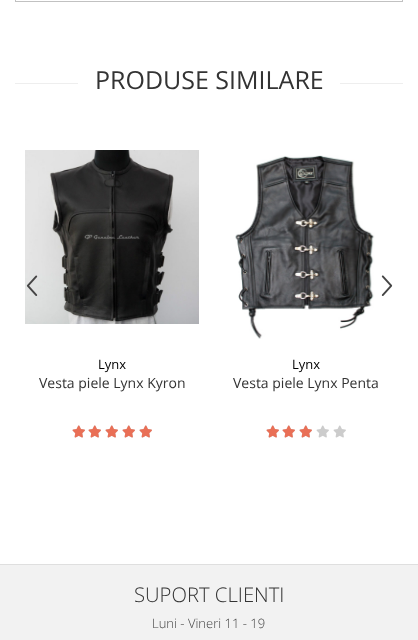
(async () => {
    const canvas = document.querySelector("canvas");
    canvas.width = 418;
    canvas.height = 640;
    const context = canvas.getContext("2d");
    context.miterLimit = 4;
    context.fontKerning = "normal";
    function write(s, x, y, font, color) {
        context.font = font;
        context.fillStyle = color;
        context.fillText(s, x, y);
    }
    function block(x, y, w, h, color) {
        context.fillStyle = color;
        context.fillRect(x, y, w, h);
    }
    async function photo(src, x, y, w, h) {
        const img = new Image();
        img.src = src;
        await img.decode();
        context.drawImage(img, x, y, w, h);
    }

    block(0, 0, 418, 640, "rgb(255, 255, 255)");
    context.strokeStyle = "rgb(193, 193, 193)";
    context.strokeRect(15.5, -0.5, 387, 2);
    block(15, 83, 388, 1, "rgb(238, 238, 238)");
    block(78, 83, 262, 1, "rgb(255, 255, 255)");
    write("PRODUSE SIMILARE", 95, 89, "25px Open Sans", "rgb(51, 51, 51)");
    await photo("media/3.png", 25, 150, 174, 174);
    await photo("media/1.png", 26, 275, 12, 21);
    await photo("media/2.png", 381, 275, 12, 21);
    write("Lynx", 98, 369, "13px Open Sans", "rgb(0, 0, 0)");
    write("Vesta piele Lynx Kyron", 39, 388, "14px Open Sans", "rgb(51, 51, 51)");
    await photo("media/4.png", 72, 425, 13, 13);
    await photo("media/5.png", 72, 425, 13, 13);
    await photo("media/4.png", 88, 425, 13, 13);
    await photo("media/5.png", 88, 425, 13, 13);
    await photo("media/4.png", 105, 425, 13, 13);
    await photo("media/5.png", 105, 425, 13, 13);
    await photo("media/4.png", 122, 425, 13, 13);
    await photo("media/5.png", 122, 425, 13, 13);
    await photo("media/4.png", 139, 425, 13, 13);
    await photo("media/5.png", 139, 425, 13, 13);
    await photo("media/6.png", 235, 155, 140, 184);
    write("Lynx", 292, 369, "13px Open Sans", "rgb(0, 0, 0)");
    write("Vesta piele Lynx Penta", 233, 388, "14px Open Sans", "rgb(51, 51, 51)");
    await photo("media/4.png", 266, 425, 13, 13);
    await photo("media/5.png", 266, 425, 13, 13);
    await photo("media/4.png", 282, 425, 13, 13);
    await photo("media/5.png", 282, 425, 13, 13);
    await photo("media/4.png", 299, 425, 13, 13);
    await photo("media/5.png", 299, 425, 13, 13);
    await photo("media/4.png", 316, 425, 13, 13);
    await photo("media/4.png", 333, 425, 13, 13);
    block(0, 565, 418, 75, "rgb(242, 242, 242)");
    block(0, 564, 418, 1, "rgb(223, 223, 223)");
    write("SUPORT CLIENTI", 134, 602, "300 20.25px Open Sans", "rgb(51, 51, 51)");
    write("Luni - Vineri 11 - 19", 152, 628, "300 13px Open Sans", "rgb(68, 68, 68)");
})();
